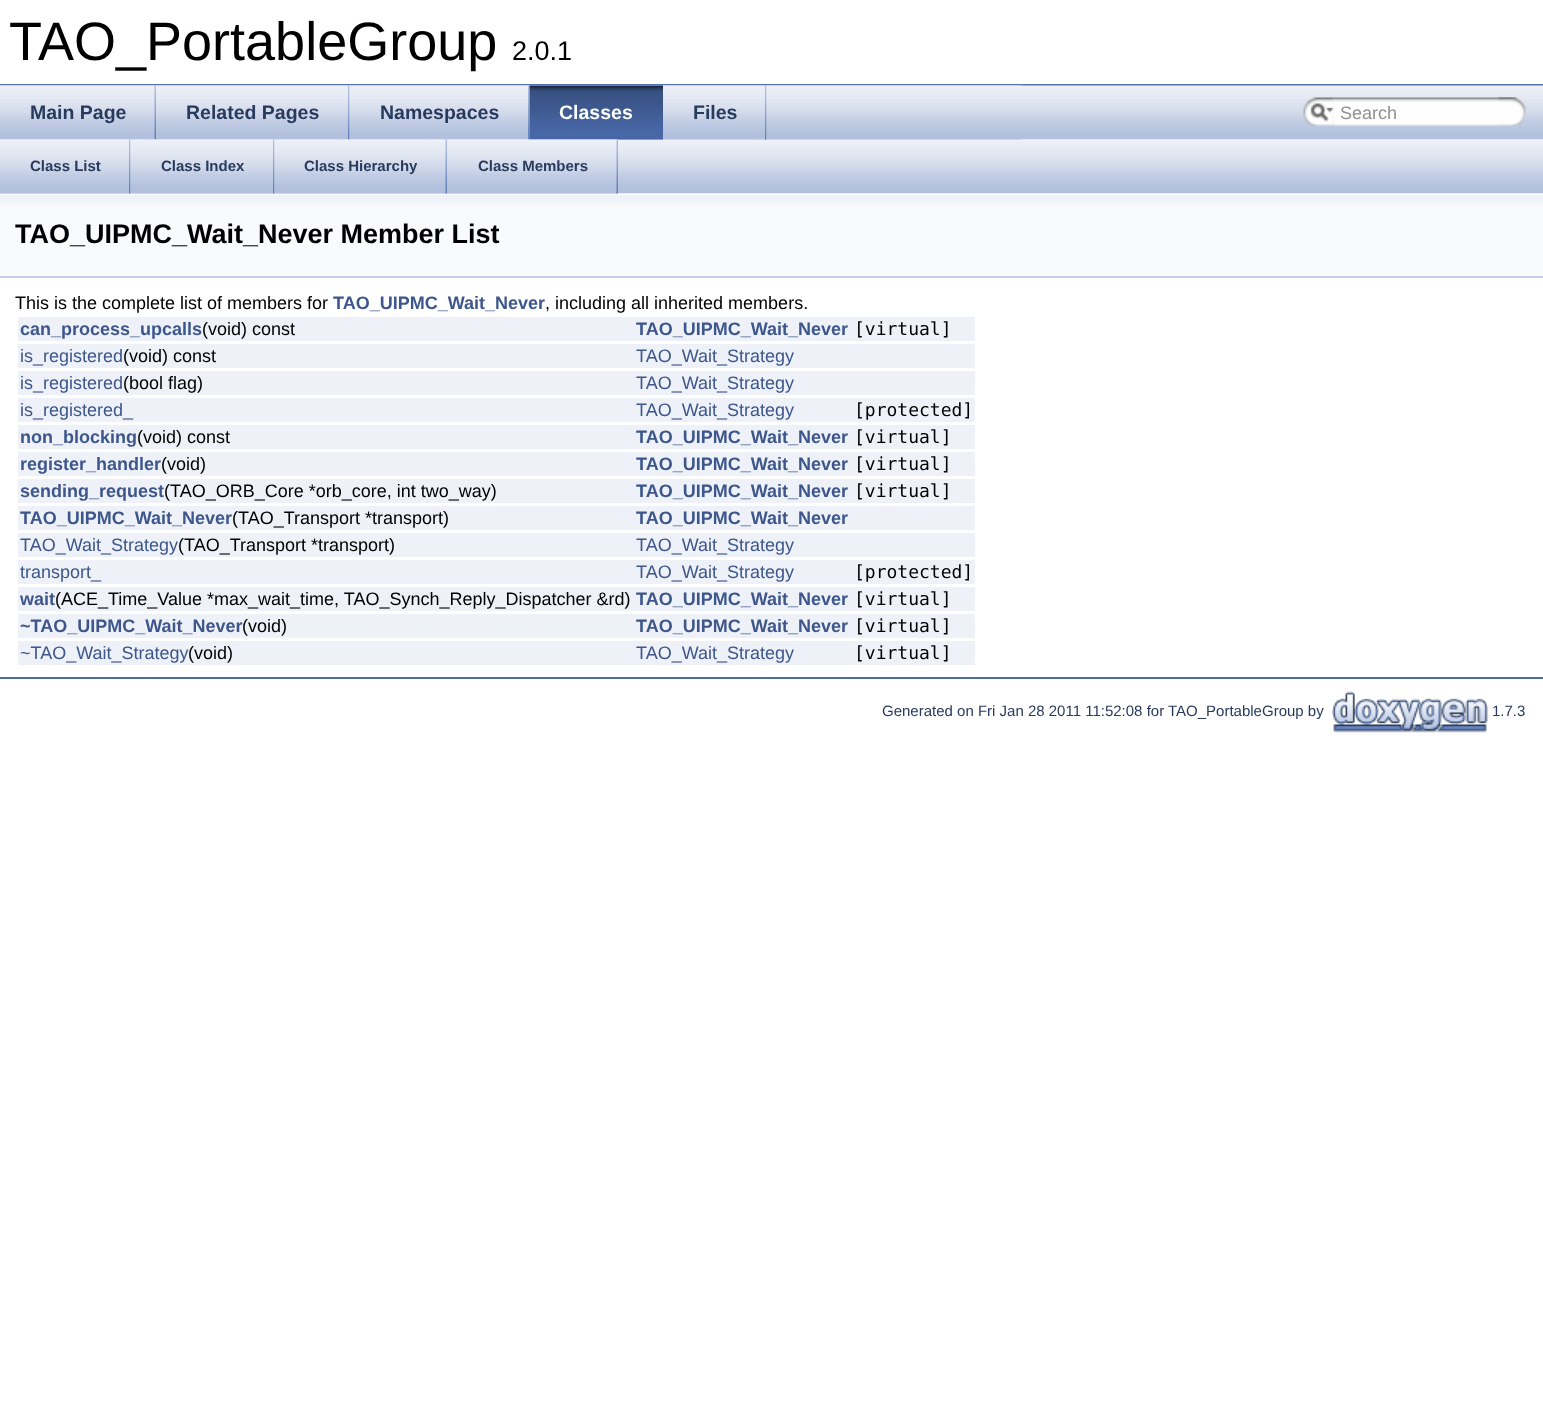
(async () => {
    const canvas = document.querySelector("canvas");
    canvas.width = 1543;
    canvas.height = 1428;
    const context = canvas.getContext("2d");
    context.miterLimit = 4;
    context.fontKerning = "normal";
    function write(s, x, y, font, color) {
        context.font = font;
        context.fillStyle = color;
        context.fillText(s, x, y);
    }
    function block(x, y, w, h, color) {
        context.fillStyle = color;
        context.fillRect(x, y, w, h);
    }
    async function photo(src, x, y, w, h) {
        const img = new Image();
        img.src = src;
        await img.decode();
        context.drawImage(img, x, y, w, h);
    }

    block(0, 0, 1543, 1428, "rgb(255, 255, 255)");
    block(0, 84, 1543, 2, "rgb(83, 115, 180)");
    write("TAO_PortableGroup", 9, 60, "54px Liberation Sans", "rgb(0, 0, 0)");
    write("2.0.1", 512, 60, "27px Liberation Sans", "rgb(0, 0, 0)");
    await photo("media/1.png", 0, 85, 1543, 55);
    await photo("media/15.png", 0, 139, 1543, 55);
    await photo("media/2.png", 0, 85, 156, 55);
    await photo("media/3.png", 154, 85, 2, 55);
    write("Main Page", 30, 119, "bold 19.5px Liberation Sans", "rgb(40, 58, 93)");
    await photo("media/4.png", 156, 85, 194, 55);
    await photo("media/5.png", 348, 85, 2, 55);
    write("Related Pages", 186, 119, "bold 19.5px Liberation Sans", "rgb(40, 58, 93)");
    await photo("media/6.png", 349, 85, 181, 55);
    await photo("media/5.png", 528, 85, 2, 55);
    write("Namespaces", 380, 119, "bold 19.5px Liberation Sans", "rgb(40, 58, 93)");
    await photo("media/7.png", 529, 85, 134, 55);
    await photo("media/8.png", 529, 85, 134, 55);
    write("Classes", 559, 119, "bold 19.5px Liberation Sans", "rgb(255, 255, 255)");
    await photo("media/9.png", 663, 85, 104, 55);
    await photo("media/5.png", 765, 85, 2, 55);
    write("Files", 693, 119, "bold 19.5px Liberation Sans", "rgb(40, 58, 93)");
    await photo("media/10.png", 766, 85, 256, 55);
    await photo("media/11.png", 1303, 97, 31, 29);
    await photo("media/12.png", 1310, 103, 24, 19);
    await photo("media/13.png", 1333, 97, 184, 29);
    write("Search", 1340, 119, "18px Liberation Sans", "rgb(144, 144, 144)");
    await photo("media/14.png", 1498, 97, 28, 29);
    await photo("media/23.png", 0, 193, 1543, 12);
    await photo("media/16.png", 0, 139, 131, 55);
    await photo("media/17.png", 129, 139, 2, 55);
    write("Class List", 30, 171, "bold 15px Liberation Sans", "rgb(40, 58, 93)");
    await photo("media/18.png", 130, 139, 145, 55);
    await photo("media/17.png", 273, 139, 2, 55);
    write("Class Index", 161, 171, "bold 15px Liberation Sans", "rgb(40, 58, 93)");
    await photo("media/19.png", 274, 139, 173, 55);
    await photo("media/20.png", 445, 139, 2, 55);
    write("Class Hierarchy", 304, 171, "bold 15px Liberation Sans", "rgb(40, 58, 93)");
    await photo("media/21.png", 447, 139, 171, 55);
    await photo("media/22.png", 616, 139, 2, 55);
    write("Class Members", 478, 171, "bold 15px Liberation Sans", "rgb(40, 58, 93)");
    block(0, 205, 1543, 71, "rgb(249, 250, 252)");
    block(0, 276, 1543, 2, "rgb(196, 207, 229)");
    write("TAO_UIPMC_Wait_Never Member List", 15, 243, "bold 27px Liberation Sans", "rgb(0, 0, 0)");
    write("This is the complete list of members for", 15, 309, "18px Liberation Sans", "rgb(0, 0, 0)");
    write("TAO_UIPMC_Wait_Never", 333, 309, "bold 18px Liberation Sans", "rgb(61, 87, 140)");
    write(", including all inherited members.", 545, 309, "18px Liberation Sans", "rgb(0, 0, 0)");
    block(18, 317, 957, 24, "rgb(238, 241, 247)");
    write("can_process_upcalls", 20, 335, "bold 18px Liberation Sans", "rgb(61, 87, 140)");
    write("(void) const", 202, 335, "18px Liberation Sans", "rgb(0, 0, 0)");
    write("TAO_UIPMC_Wait_Never", 636, 335, "bold 18px Liberation Sans", "rgb(61, 87, 140)");
    write("[virtual]", 854, 335, "18px DejaVu Sans Mono", "rgb(0, 0, 0)");
    block(18, 344, 957, 24, "rgb(238, 241, 247)");
    write("is_registered", 20, 362, "18px Liberation Sans", "rgb(61, 87, 140)");
    write("(void) const", 123, 362, "18px Liberation Sans", "rgb(0, 0, 0)");
    write("TAO_Wait_Strategy", 636, 362, "18px Liberation Sans", "rgb(61, 87, 140)");
    block(18, 371, 957, 24, "rgb(238, 241, 247)");
    write("is_registered", 20, 389, "18px Liberation Sans", "rgb(61, 87, 140)");
    write("(bool flag)", 123, 389, "18px Liberation Sans", "rgb(0, 0, 0)");
    write("TAO_Wait_Strategy", 636, 389, "18px Liberation Sans", "rgb(61, 87, 140)");
    block(18, 398, 957, 24, "rgb(238, 241, 247)");
    write("is_registered_", 20, 416, "18px Liberation Sans", "rgb(61, 87, 140)");
    write("TAO_Wait_Strategy", 636, 416, "18px Liberation Sans", "rgb(61, 87, 140)");
    write("[protected]", 854, 416, "18px DejaVu Sans Mono", "rgb(0, 0, 0)");
    block(18, 425, 957, 24, "rgb(238, 241, 247)");
    write("non_blocking", 20, 443, "bold 18px Liberation Sans", "rgb(61, 87, 140)");
    write("(void) const", 137, 443, "18px Liberation Sans", "rgb(0, 0, 0)");
    write("TAO_UIPMC_Wait_Never", 636, 443, "bold 18px Liberation Sans", "rgb(61, 87, 140)");
    write("[virtual]", 854, 443, "18px DejaVu Sans Mono", "rgb(0, 0, 0)");
    block(18, 452, 957, 24, "rgb(238, 241, 247)");
    write("register_handler", 20, 470, "bold 18px Liberation Sans", "rgb(61, 87, 140)");
    write("(void)", 161, 470, "18px Liberation Sans", "rgb(0, 0, 0)");
    write("TAO_UIPMC_Wait_Never", 636, 470, "bold 18px Liberation Sans", "rgb(61, 87, 140)");
    write("[virtual]", 854, 470, "18px DejaVu Sans Mono", "rgb(0, 0, 0)");
    block(18, 479, 957, 24, "rgb(238, 241, 247)");
    write("sending_request", 20, 497, "bold 18px Liberation Sans", "rgb(61, 87, 140)");
    write("(TAO_ORB_Core *orb_core, int two_way)", 164, 497, "18px Liberation Sans", "rgb(0, 0, 0)");
    write("TAO_UIPMC_Wait_Never", 636, 497, "bold 18px Liberation Sans", "rgb(61, 87, 140)");
    write("[virtual]", 854, 497, "18px DejaVu Sans Mono", "rgb(0, 0, 0)");
    block(18, 506, 957, 24, "rgb(238, 241, 247)");
    write("TAO_UIPMC_Wait_Never", 20, 524, "bold 18px Liberation Sans", "rgb(61, 87, 140)");
    write("(TAO_Transport *transport)", 232, 524, "18px Liberation Sans", "rgb(0, 0, 0)");
    write("TAO_UIPMC_Wait_Never", 636, 524, "bold 18px Liberation Sans", "rgb(61, 87, 140)");
    block(18, 533, 957, 24, "rgb(238, 241, 247)");
    write("TAO_Wait_Strategy", 20, 551, "18px Liberation Sans", "rgb(61, 87, 140)");
    write("(TAO_Transport *transport)", 178, 551, "18px Liberation Sans", "rgb(0, 0, 0)");
    write("TAO_Wait_Strategy", 636, 551, "18px Liberation Sans", "rgb(61, 87, 140)");
    block(18, 560, 957, 24, "rgb(238, 241, 247)");
    write("transport_", 20, 578, "18px Liberation Sans", "rgb(61, 87, 140)");
    write("TAO_Wait_Strategy", 636, 578, "18px Liberation Sans", "rgb(61, 87, 140)");
    write("[protected]", 854, 578, "18px DejaVu Sans Mono", "rgb(0, 0, 0)");
    block(18, 587, 957, 24, "rgb(238, 241, 247)");
    write("wait", 20, 605, "bold 18px Liberation Sans", "rgb(61, 87, 140)");
    write("(ACE_Time_Value *max_wait_time, TAO_Synch_Reply_Dispatcher &rd)", 55, 605, "18px Liberation Sans", "rgb(0, 0, 0)");
    write("TAO_UIPMC_Wait_Never", 636, 605, "bold 18px Liberation Sans", "rgb(61, 87, 140)");
    write("[virtual]", 854, 605, "18px DejaVu Sans Mono", "rgb(0, 0, 0)");
    block(18, 614, 957, 24, "rgb(238, 241, 247)");
    write("~TAO_UIPMC_Wait_Never", 20, 632, "bold 18px Liberation Sans", "rgb(61, 87, 140)");
    write("(void)", 242, 632, "18px Liberation Sans", "rgb(0, 0, 0)");
    write("TAO_UIPMC_Wait_Never", 636, 632, "bold 18px Liberation Sans", "rgb(61, 87, 140)");
    write("[virtual]", 854, 632, "18px DejaVu Sans Mono", "rgb(0, 0, 0)");
    block(18, 641, 957, 24, "rgb(238, 241, 247)");
    write("~TAO_Wait_Strategy", 20, 659, "18px Liberation Sans", "rgb(61, 87, 140)");
    write("(void)", 188, 659, "18px Liberation Sans", "rgb(0, 0, 0)");
    write("TAO_Wait_Strategy", 636, 659, "18px Liberation Sans", "rgb(61, 87, 140)");
    write("[virtual]", 854, 659, "18px DejaVu Sans Mono", "rgb(0, 0, 0)");
    block(0, 677, 1543, 2, "rgb(74, 106, 170)");
    write("Generated on Fri Jan 28 2011 11:52:08 for TAO_PortableGroup by", 882, 716, "15px Liberation Sans", "rgb(40, 58, 93)");
    await photo("media/24.png", 1332, 691, 156, 42);
    write("1.7.3", 1492, 716, "15px Liberation Sans", "rgb(40, 58, 93)");
})();
